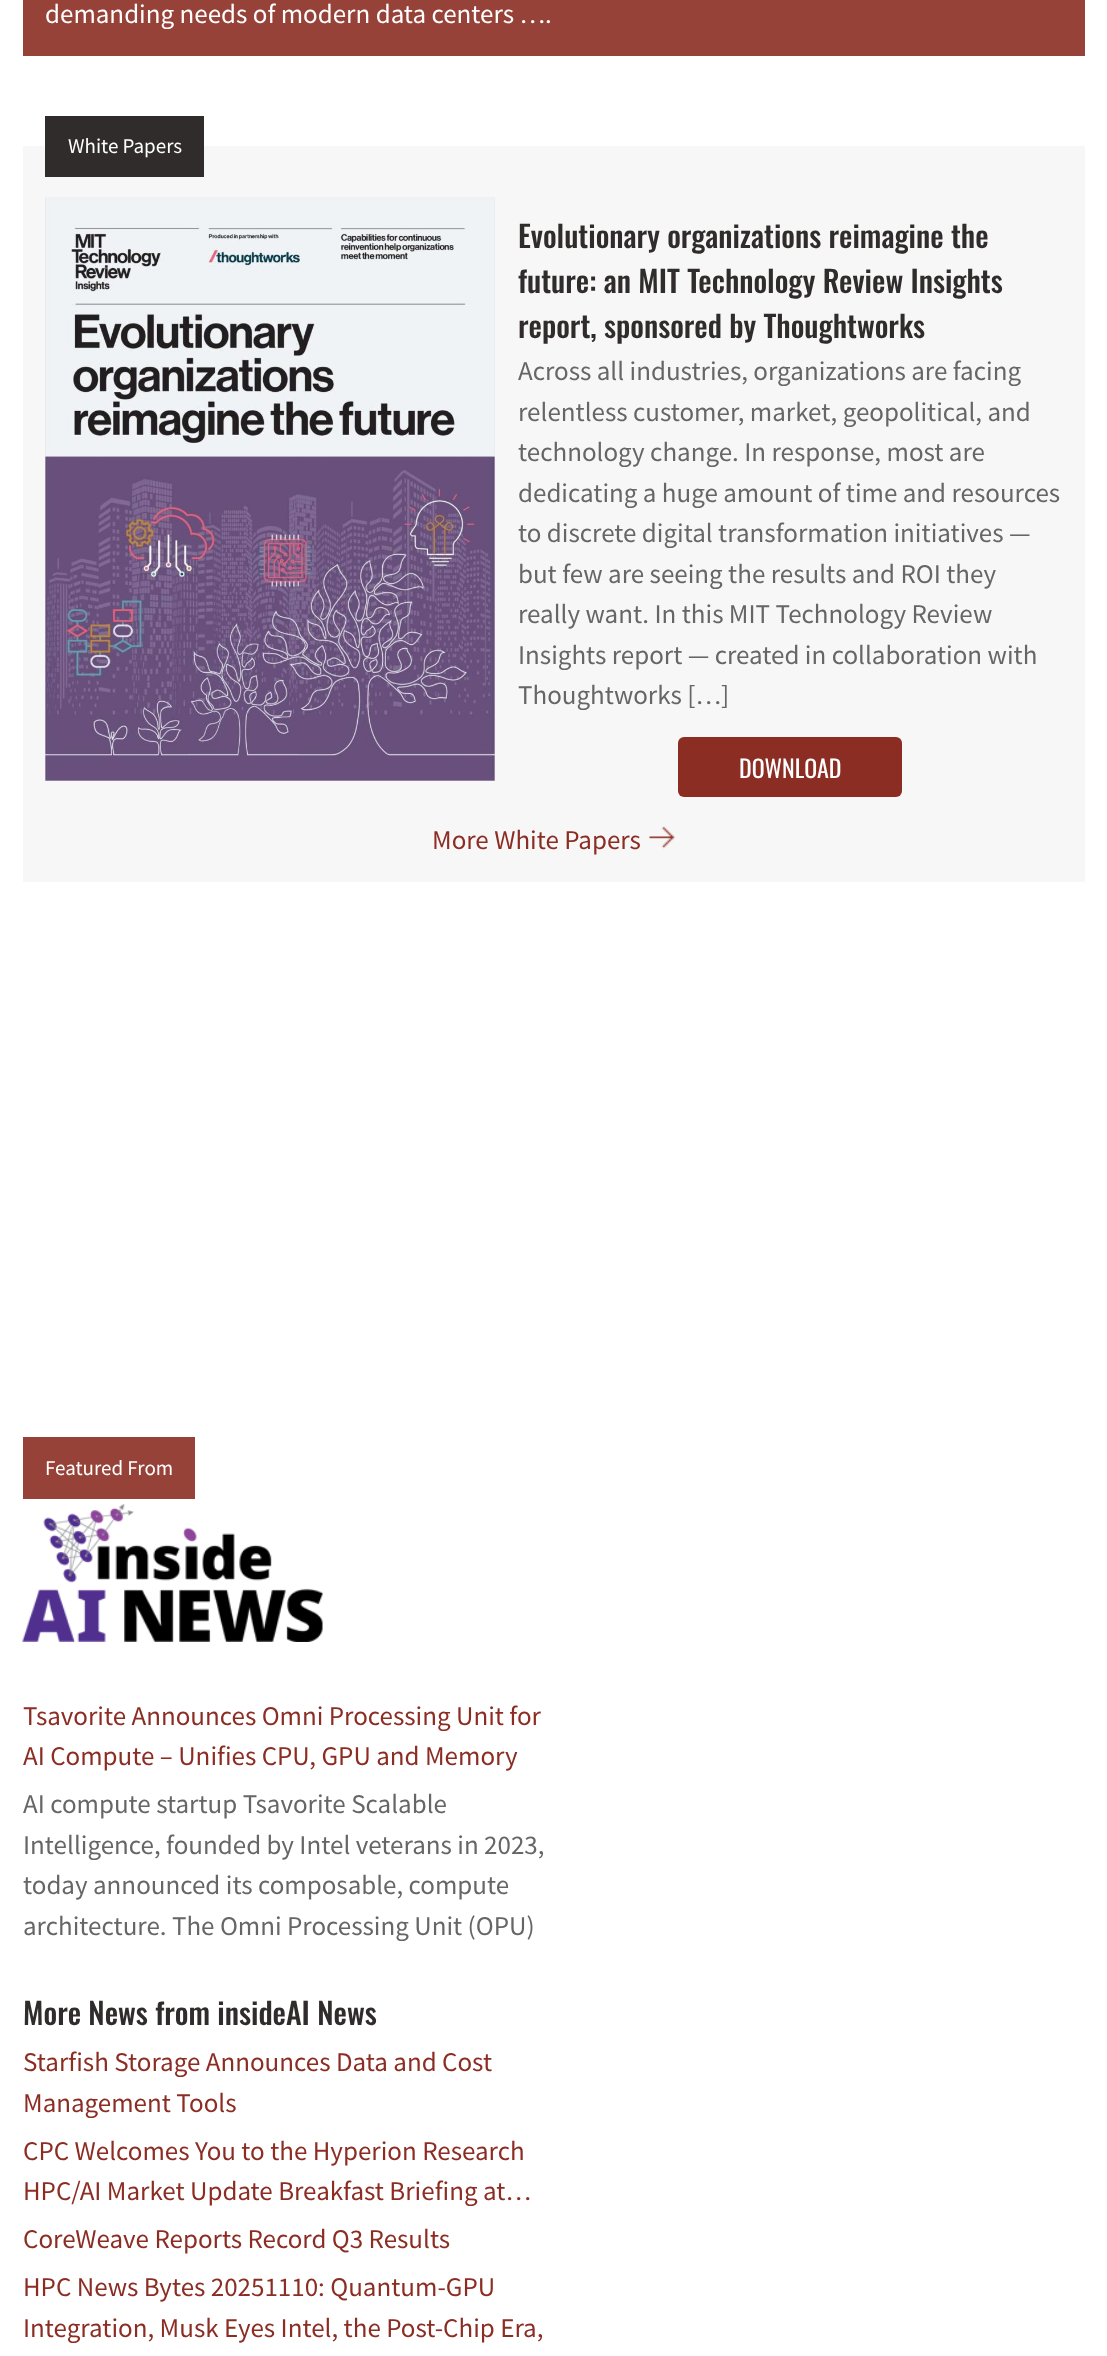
(async () => {
    const canvas = document.querySelector("canvas");
    canvas.width = 1107;
    canvas.height = 2356;
    const context = canvas.getContext("2d");
    context.miterLimit = 4;
    context.fontKerning = "normal";
    function write(s, x, y, font, color) {
        context.font = font;
        context.fillStyle = color;
        context.fillText(s, x, y);
    }
    function block(x, y, w, h, color) {
        context.fillStyle = color;
        context.fillRect(x, y, w, h);
    }
    function card(x, y, w, h, r, color) {
        context.fillStyle = color;
        context.beginPath();
        context.roundRect(x, y, w, h, r);
        context.fill();
    }
    async function photo(src, x, y, w, h) {
        const img = new Image();
        img.src = src;
        await img.decode();
        context.drawImage(img, x, y, w, h);
    }

    block(0, 0, 1107, 2356, "rgb(255, 255, 255)");
    block(23, 0, 1062, 56, "rgb(151, 66, 57)");
    write("demanding needs of modern data centers ….", 45, 23, "27px Source Sans Pro", "rgb(255, 255, 255)");
    block(23, 146, 1062, 736, "rgb(247, 247, 247)");
    block(45, 116, 159, 61, "rgb(48, 44, 44)");
    write("White Papers", 68, 153, "21px Source Sans Pro", "rgb(255, 255, 255)");
    await photo("media/1.png", 45, 197, 450, 584);
    write("Evolutionary organizations reimagine the", 518, 248, "500 30px Oswald", "rgb(48, 44, 44)");
    write("future: an MIT Technology Review Insights", 518, 293, "500 30px Oswald", "rgb(48, 44, 44)");
    write("report, sponsored by Thoughtworks", 518, 338, "500 30px Oswald", "rgb(48, 44, 44)");
    write("Across all industries, organizations are facing", 518, 380, "27px Source Sans Pro", "rgb(102, 102, 102)");
    write("relentless customer, market, geopolitical, and", 518, 421, "27px Source Sans Pro", "rgb(102, 102, 102)");
    write("technology change. In response, most are", 518, 461, "27px Source Sans Pro", "rgb(102, 102, 102)");
    write("dedicating a huge amount of time and resources", 518, 502, "27px Source Sans Pro", "rgb(102, 102, 102)");
    write("to discrete digital transformation initiatives —", 518, 542, "27px Source Sans Pro", "rgb(102, 102, 102)");
    write("but few are seeing the results and ROI they", 518, 583, "27px Source Sans Pro", "rgb(102, 102, 102)");
    write("really want. In this MIT Technology Review", 518, 623, "27px Source Sans Pro", "rgb(102, 102, 102)");
    write("Insights report — created in collaboration with", 518, 664, "27px Source Sans Pro", "rgb(102, 102, 102)");
    write("Thoughtworks […]", 518, 704, "27px Source Sans Pro", "rgb(102, 102, 102)");
    card(678, 737, 224, 60, 6, "rgb(140, 45, 36)");
    write("DOWNLOAD", 739, 778, "24px Oswald", "rgb(255, 255, 255)");
    write("More White Papers", 432, 849, "27px Source Sans Pro", "rgb(140, 45, 36)");
    await photo("media/2.png", 649, 826, 26, 23);
    block(23, 1437, 172, 62, "rgb(151, 66, 57)");
    write("Featured From", 45, 1475, "21px Source Sans Pro", "rgb(255, 255, 255)");
    await photo("media/3.png", 22, 1504, 301, 138);
    write("Tsavorite Announces Omni Processing Unit for", 23, 1725, "27px Source Sans Pro", "rgb(140, 45, 36)");
    write("AI Compute – Unifies CPU, GPU and Memory", 23, 1765, "27px Source Sans Pro", "rgb(140, 45, 36)");
    write("AI compute startup Tsavorite Scalable", 23, 1813, "27px Source Sans Pro", "rgb(102, 102, 102)");
    write("Intelligence, founded by Intel veterans in 2023,", 23, 1854, "27px Source Sans Pro", "rgb(102, 102, 102)");
    write("today announced its composable, compute", 23, 1894, "27px Source Sans Pro", "rgb(102, 102, 102)");
    write("architecture. The Omni Processing Unit (OPU)", 23, 1935, "27px Source Sans Pro", "rgb(102, 102, 102)");
    write("More News from insideAI News", 23, 2025, "500 30px Oswald", "rgb(48, 44, 44)");
    write("Starfish Storage Announces Data and Cost", 23, 2071, "27px Source Sans Pro", "rgb(140, 45, 36)");
    write("Management Tools", 23, 2112, "27px Source Sans Pro", "rgb(140, 45, 36)");
    write("CPC Welcomes You to the Hyperion Research", 23, 2160, "27px Source Sans Pro", "rgb(140, 45, 36)");
    write("HPC/AI Market Update Breakfast Briefing at…", 23, 2200, "27px Source Sans Pro", "rgb(140, 45, 36)");
    write("CoreWeave Reports Record Q3 Results", 23, 2248, "27px Source Sans Pro", "rgb(140, 45, 36)");
    write("HPC News Bytes 20251110: Quantum-GPU", 23, 2296, "27px Source Sans Pro", "rgb(140, 45, 36)");
    write("Integration, Musk Eyes Intel, the Post-Chip Era,", 23, 2337, "27px Source Sans Pro", "rgb(140, 45, 36)");
})();
